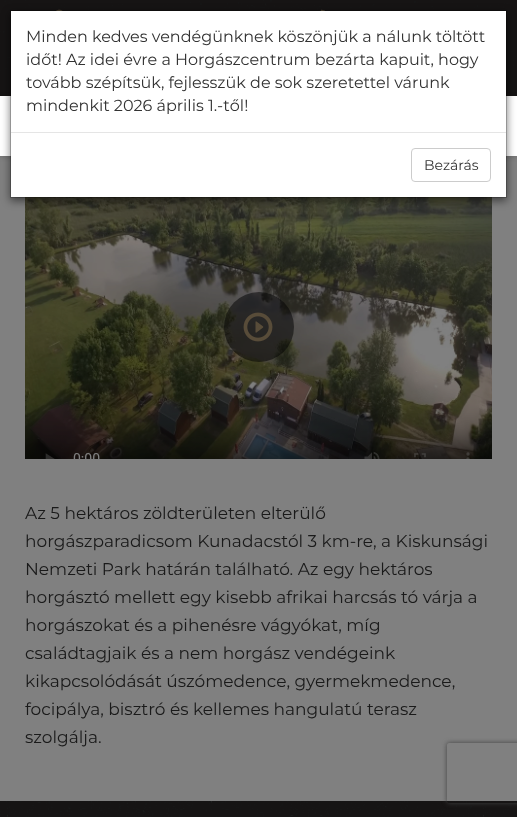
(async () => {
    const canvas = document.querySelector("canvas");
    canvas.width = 517;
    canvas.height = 817;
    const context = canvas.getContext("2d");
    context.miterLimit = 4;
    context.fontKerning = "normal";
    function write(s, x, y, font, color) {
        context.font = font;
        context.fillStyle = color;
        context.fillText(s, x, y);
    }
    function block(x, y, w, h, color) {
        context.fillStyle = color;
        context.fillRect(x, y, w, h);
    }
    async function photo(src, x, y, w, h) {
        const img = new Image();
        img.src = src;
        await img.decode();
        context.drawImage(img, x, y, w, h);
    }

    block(0, 0, 517, 817, "rgb(128, 128, 128)");
    await photo("media/1.png", 0, 0, 517, 96);
    await photo("media/2.png", 56, 9, 7, 2);
    await photo("media/3.png", 320, 9, 5, 2);
    context.fillStyle = "rgba(0, 0, 0, 0.15)";
    context.filter = "blur(2.5px)";
    context.beginPath();
    context.rect(0, 97, 517, 60);
    context.fill();
    context.filter = "none";
    block(0, 96, 517, 60, "rgb(255, 255, 255)");
    await photo("media/4.png", 25, 197, 467, 262);
    context.fillStyle = "rgba(0, 0, 0, 0.5)";
    context.filter = "blur(4.5px)";
    context.beginPath();
    context.rect(10, 13, 497, 188);
    context.fill();
    context.filter = "none";
    block(11, 11, 495, 186, "rgb(255, 255, 255)");
    context.strokeStyle = "rgba(0, 0, 0, 0.2)";
    context.strokeRect(10.5, 10.5, 496, 187);
    write("Minden kedves vendégünknek köszönjük a nálunk töltött", 26, 42, "16px Montserrat", "rgb(51, 51, 51)");
    write("időt! Az idei évre a Horgászcentrum bezárta kapuit, hogy", 26, 65, "16px Montserrat", "rgb(51, 51, 51)");
    write("tovább szépítsük, fejlesszük de sok szeretettel várunk", 26, 88, "16px Montserrat", "rgb(51, 51, 51)");
    write("mindenkit 2026 április 1.-től!", 26, 111, "16px Montserrat", "rgb(51, 51, 51)");
    block(11, 132, 495, 1, "rgb(229, 229, 229)");
    context.beginPath();
    context.roundRect(411.5, 148.5, 79, 33, 3.5);
    context.strokeStyle = "rgb(204, 204, 204)";
    context.stroke();
    write("Bezárás", 424, 170, "14px Montserrat", "rgb(51, 51, 51)");
    context.fillStyle = "rgba(0, 0, 0, 0.5)";
    context.beginPath();
    context.arc(259, 327, 35, 0, Math.PI * 2);
    context.fill();
    await photo("media/5.png", 243, 312, 30, 30);
    write("Az 5 hektáros zöldterületen elterülő", 25, 519, "17px Montserrat", "rgb(26, 26, 26)");
    write("horgászparadicsom Kunadacstól 3 km-re, a Kiskunsági", 25, 547, "17px Montserrat", "rgb(26, 26, 26)");
    write("Nemzeti Park határán található. Az egy hektáros", 25, 575, "17px Montserrat", "rgb(26, 26, 26)");
    write("horgásztó mellett egy kisebb afrikai harcsás tó várja a", 25, 603, "17px Montserrat", "rgb(26, 26, 26)");
    write("horgászokat és a pihenésre vágyókat, míg", 25, 631, "17px Montserrat", "rgb(26, 26, 26)");
    write("családtagjaik és a nem horgász vendégeink", 25, 659, "17px Montserrat", "rgb(26, 26, 26)");
    write("kikapcsolódását úszómedence, gyermekmedence,", 25, 687, "17px Montserrat", "rgb(26, 26, 26)");
    write("focipálya, bisztró és kellemes hangulatú terasz", 25, 715, "17px Montserrat", "rgb(26, 26, 26)");
    write("szolgálja.", 25, 743, "17px Montserrat", "rgb(26, 26, 26)");
    await photo("media/6.png", 0, 801, 517, 16);
    context.save();
    context.beginPath();
    context.moveTo(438, 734);
    context.lineTo(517, 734);
    context.lineTo(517, 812);
    context.lineTo(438, 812);
    context.closePath();
    context.moveTo(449, 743);
    context.lineTo(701, 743);
    context.bezierCurveTo(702, 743, 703, 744, 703, 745);
    context.lineTo(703, 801);
    context.bezierCurveTo(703, 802, 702, 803, 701, 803);
    context.lineTo(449, 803);
    context.bezierCurveTo(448, 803, 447, 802, 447, 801);
    context.lineTo(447, 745);
    context.bezierCurveTo(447, 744, 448, 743, 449, 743);
    context.closePath();
    context.clip("evenodd");
    context.fillStyle = "rgb(64, 64, 64)";
    context.filter = "blur(2.5px)";
    context.beginPath();
    context.roundRect(447, 743, 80, 60, 2);
    context.fill();
    context.filter = "none";
    context.restore();
})();
